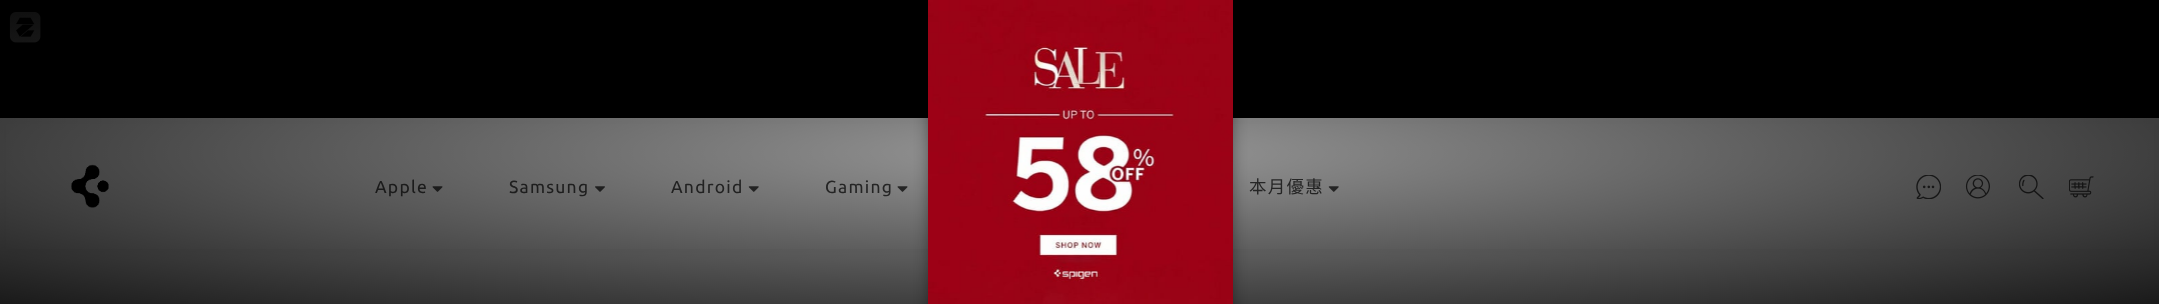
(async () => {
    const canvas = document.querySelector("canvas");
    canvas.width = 2159;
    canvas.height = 304;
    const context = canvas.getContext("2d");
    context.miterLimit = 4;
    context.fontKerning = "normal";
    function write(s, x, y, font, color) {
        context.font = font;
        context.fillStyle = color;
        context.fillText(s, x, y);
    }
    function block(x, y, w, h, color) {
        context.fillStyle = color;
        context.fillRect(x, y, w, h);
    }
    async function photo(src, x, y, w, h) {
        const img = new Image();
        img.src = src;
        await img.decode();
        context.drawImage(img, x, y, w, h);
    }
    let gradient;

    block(0, 0, 2159, 304, "rgb(255, 255, 255)");
    block(0, 0, 2159, 118, "rgb(0, 0, 0)");
    await photo("media/2.png", 9, 12, 32, 31);
    context.fillStyle = "rgba(153, 153, 153, 0.1)";
    context.filter = "blur(4.5px)";
    context.beginPath();
    context.rect(6, 126, 2148, 125);
    context.fill();
    context.filter = "none";
    block(6, 124, 2148, 125, "rgb(255, 255, 255)");
    await photo("media/3.png", 71, 164, 38, 44);
    context.letterSpacing = "1.25px";
    write("Apple", 375, 193, "17.5px Ubuntu", "rgb(74, 74, 74)");
    await photo("media/4.png", 432, 186, 11, 6);
    write("Samsung", 509, 193, "17.5px Ubuntu", "rgb(74, 74, 74)");
    await photo("media/5.png", 595, 186, 10, 6);
    write("Android", 671, 193, "17.5px Ubuntu", "rgb(74, 74, 74)");
    await photo("media/6.png", 748, 186, 11, 6);
    write("Gaming", 825, 193, "17.5px Ubuntu", "rgb(74, 74, 74)");
    await photo("media/4.png", 897, 186, 11, 6);
    write("本月優惠", 1249, 193, "17.5px Noto Sans TC", "rgb(74, 74, 74)");
    await photo("media/6.png", 1328, 186, 11, 6);
    await photo("media/7.png", 1916, 175, 25, 24);
    await photo("media/8.png", 1965, 175, 25, 24);
    await photo("media/9.png", 2019, 175, 25, 24);
    await photo("media/10.png", 2069, 176, 25, 22);
    gradient = context.createRadialGradient(1080, 1081.62, 0, 1080, 1081.62, 1527);
    gradient.addColorStop(0, "rgba(0, 0, 0, 0.4)");
    gradient.addColorStop(1, "rgba(0, 0, 0, 0.9)");
    context.fillStyle = gradient;
    context.beginPath();
    context.rect(0, 12, 2159, 292);
    context.save();
    context.clip();
    context.scale(1, 216 / 1527);
    context.fillRect(0, 0, 2159, 2150);
    context.restore();
    context.fillStyle = "rgba(0, 0, 0, 0.4)";
    context.filter = "blur(7px)";
    context.beginPath();
    context.roundRect(928, 0, 305, 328, 2.5);
    context.fill();
    context.filter = "none";
    await photo("media/1.png", 928, 0, 305, 304);
})();
